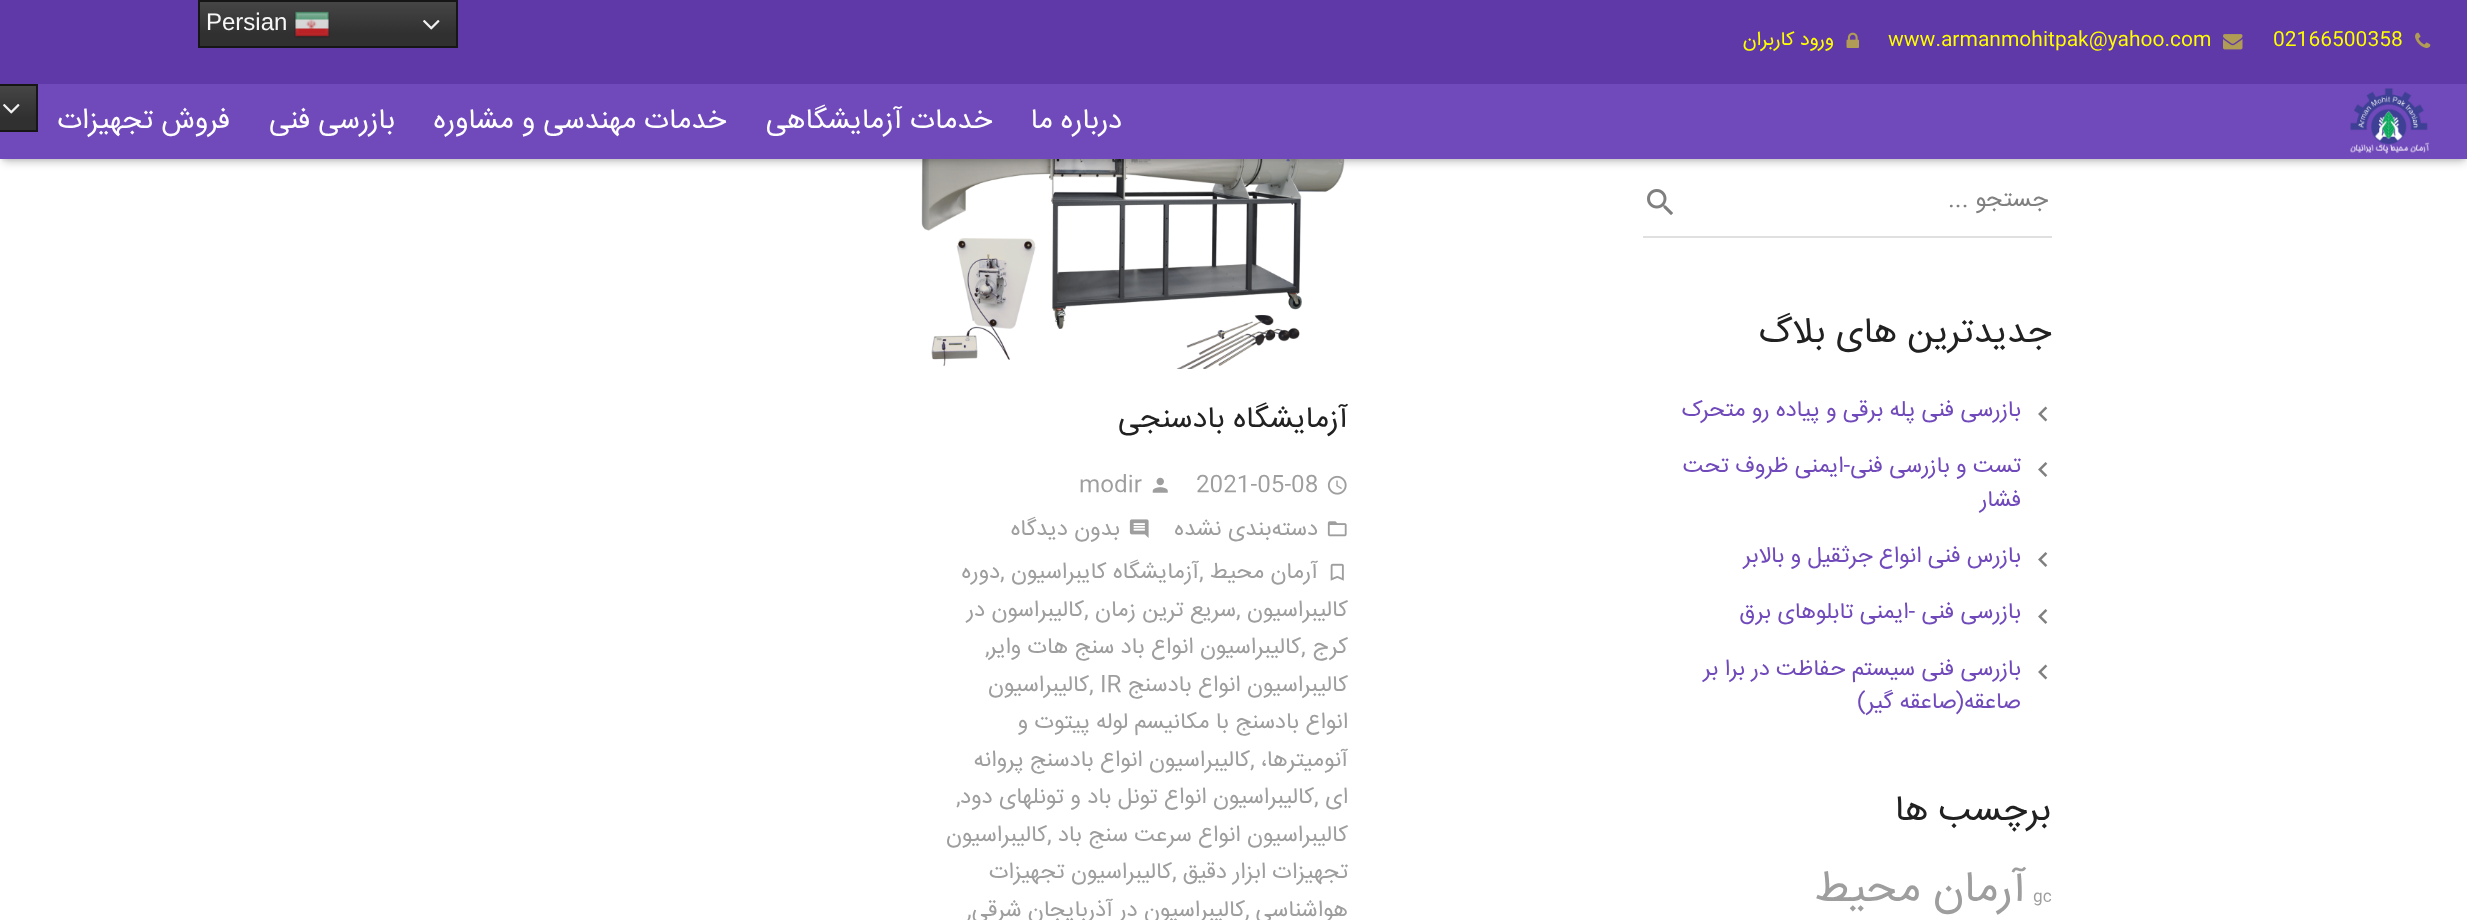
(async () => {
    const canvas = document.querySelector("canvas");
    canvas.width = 2467;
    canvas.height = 920;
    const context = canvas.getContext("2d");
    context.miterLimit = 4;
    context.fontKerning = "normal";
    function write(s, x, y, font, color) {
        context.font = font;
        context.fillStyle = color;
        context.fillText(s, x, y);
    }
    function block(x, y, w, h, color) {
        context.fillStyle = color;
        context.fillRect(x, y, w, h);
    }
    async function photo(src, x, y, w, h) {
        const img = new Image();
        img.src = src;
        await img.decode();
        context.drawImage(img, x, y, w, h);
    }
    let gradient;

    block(0, 0, 2467, 920, "rgb(255, 255, 255)");
    block(0, 0, 2467, 84, "rgb(96, 57, 168)");
    gradient = context.createLinearGradient(328, 0, 328, 48);
    gradient.addColorStop(0, "rgb(71, 71, 71)");
    gradient.addColorStop(0.7, "rgb(48, 48, 48)");
    context.fillStyle = gradient;
    context.fillRect(200, 2, 256, 44);
    context.strokeStyle = "rgb(22, 22, 22)";
    context.lineWidth = 2;
    context.strokeRect(199, 1, 258, 46);
    await photo("media/1.png", 423, 20, 17, 10);
    await photo("media/2.png", 294, 11, 36, 27);
    write("Persian", 206, 30, "24px Liberation Sans", "rgb(247, 247, 247)");
    await photo("media/3.png", 2415, 32, 16, 16);
    write("02166500358", 2273, 45, "19.5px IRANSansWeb", "rgb(255, 255, 0)");
    await photo("media/4.png", 2223, 34, 20, 16);
    write("www.armanmohitpak@yahoo.com", 1888, 45, "19.5px IRANSansWeb", "rgb(255, 255, 0)");
    await photo("media/5.png", 1846, 32, 13, 16);
    context.direction = "rtl";
    write("ورود کاربران", 1834, 45, "19.5px IRANSansWeb", "rgb(255, 255, 0)");
    await photo("media/10.png", 921, 159, 424, 210);
    context.fillStyle = "rgba(0, 0, 0, 0.05)";
    context.filter = "blur(1px)";
    context.beginPath();
    context.rect(2, 89, 2464, 72);
    context.fill();
    context.filter = "none";
    context.fillStyle = "rgba(0, 0, 0, 0.22)";
    context.filter = "blur(4px)";
    context.beginPath();
    context.rect(3, 93, 2462, 69);
    context.fill();
    context.filter = "none";
    block(0, 84, 2467, 75, "rgb(112, 73, 186)");
    await photo("media/6.png", 2350, 88, 80, 66);
    write("درباره ما", 1122, 128, "28.5px IRANSansWeb", "rgb(255, 255, 255)");
    write("خدمات آزمایشگاهی", 992, 128, "28.5px IRANSansWeb", "rgb(255, 255, 255)");
    write("خدمات مهندسی و مشاوره", 726, 128, "28.5px IRANSansWeb", "rgb(255, 255, 255)");
    write("بازرسی فنی", 395, 128, "28.5px IRANSansWeb", "rgb(255, 255, 255)");
    write("فروش تجهیزات", 230, 128, "28.5px IRANSansWeb", "rgb(255, 255, 255)");
    gradient = context.createLinearGradient(-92, 84, -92, 132);
    gradient.addColorStop(0, "rgb(71, 71, 71)");
    gradient.addColorStop(0.7, "rgb(48, 48, 48)");
    context.fillStyle = gradient;
    context.fillRect(0, 86, 36, 44);
    context.strokeRect(-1, 85, 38, 46);
    await photo("media/1.png", 3, 104, 17, 10);
    block(1643, 236, 409, 2, "rgb(224, 224, 224)");
    write("جستجو ...", 2048, 206, "24px IRANSansWeb", "rgb(128, 128, 128)");
    await photo("media/7.png", 1647, 189, 26, 26);
    write("جدیدترین های بلاگ", 2051, 342, "36px IRANSansWeb", "rgb(33, 33, 33)");
    await photo("media/8.png", 2038, 406, 10, 16);
    write("بازرسی فنی پله برقی و پیاده رو متحرک", 2021, 416, "22.5px IRANSansWeb", "rgb(112, 73, 186)");
    await photo("media/9.png", 2038, 462, 10, 15);
    write("تست و بازرسی فنی-ایمنی ظروف تحت", 2021, 472, "22.5px IRANSansWeb", "rgb(112, 73, 186)");
    write("فشار", 2021, 506, "22.5px IRANSansWeb", "rgb(112, 73, 186)");
    await photo("media/9.png", 2038, 552, 10, 15);
    write("بازرس فنی انواع جرثقیل و بالابر", 2021, 562, "22.5px IRANSansWeb", "rgb(112, 73, 186)");
    await photo("media/9.png", 2038, 609, 10, 15);
    write("بازرسی فنی -ایمنی تابلوهای برق", 2021, 618, "22.5px IRANSansWeb", "rgb(112, 73, 186)");
    await photo("media/8.png", 2038, 664, 10, 16);
    write("بازرسی فنی سیستم حفاظت در برا بر", 2021, 675, "22.5px IRANSansWeb", "rgb(112, 73, 186)");
    write("صاعقه(صاعقه گیر)", 2021, 708, "22.5px IRANSansWeb", "rgb(112, 73, 186)");
    write("برچسب ها", 2051, 820, "36px IRANSansWeb", "rgb(33, 33, 33)");
    context.direction = "ltr";
    write("gc", 2033, 901, "16px IRANSansWeb", "rgb(158, 158, 158)");
    context.direction = "rtl";
    write("آرمان محیط", 2026, 901, "44px IRANSansWeb", "rgb(158, 158, 158)");
    write("آزمایشگاه بادسنجی", 1348, 427, "30px IRANSansWeb", "rgb(33, 33, 33)");
    await photo("media/11.png", 1327, 475, 20, 20);
    context.direction = "ltr";
    write("2021-05-08", 1196, 491, "22.5px IRANSansWeb", "rgb(158, 158, 158)");
    await photo("media/12.png", 1152, 477, 16, 16);
    write("modir", 1079, 491, "22.5px IRANSansWeb", "rgb(158, 158, 158)");
    await photo("media/13.png", 1327, 521, 20, 16);
    context.direction = "rtl";
    write("دسته‌بندی نشده", 1318, 535, "22.5px IRANSansWeb", "rgb(158, 158, 158)");
    await photo("media/14.png", 1129, 519, 20, 19);
    write("بدون دیدگاه", 1120, 535, "22.5px IRANSansWeb", "rgb(158, 158, 158)");
    await photo("media/15.png", 1330, 563, 14, 18);
    write("آرمان محیط", 1318, 578, "22.5px IRANSansWeb", "rgb(158, 158, 158)");
    context.direction = "ltr";
    write(",", 1199, 578, "22.5px IRANSansWeb", "rgb(158, 158, 158)");
    context.direction = "rtl";
    write("آزمایشگاه کایبراسیون", 1199, 578, "22.5px IRANSansWeb", "rgb(158, 158, 158)");
    context.direction = "ltr";
    write(",", 1000, 578, "22.5px IRANSansWeb", "rgb(158, 158, 158)");
    context.direction = "rtl";
    write("دوره", 1000, 578, "22.5px IRANSansWeb", "rgb(158, 158, 158)");
    write("کالیبراسیون", 1348, 616, "22.5px IRANSansWeb", "rgb(158, 158, 158)");
    context.direction = "ltr";
    write(",", 1236, 616, "22.5px IRANSansWeb", "rgb(158, 158, 158)");
    context.direction = "rtl";
    write("سریع ترین زمان", 1236, 616, "22.5px IRANSansWeb", "rgb(158, 158, 158)");
    context.direction = "ltr";
    write(",", 1084, 616, "22.5px IRANSansWeb", "rgb(158, 158, 158)");
    context.direction = "rtl";
    write("کالیبراسون در", 1084, 616, "22.5px IRANSansWeb", "rgb(158, 158, 158)");
    write("کرج", 1348, 653, "22.5px IRANSansWeb", "rgb(158, 158, 158)");
    context.direction = "ltr";
    write(",", 1301, 653, "22.5px IRANSansWeb", "rgb(158, 158, 158)");
    context.direction = "rtl";
    write("کالیبراسیون انواع باد سنج هات وایر", 1301, 653, "22.5px IRANSansWeb", "rgb(158, 158, 158)");
    context.direction = "ltr";
    write(",", 985, 653, "22.5px IRANSansWeb", "rgb(158, 158, 158)");
    context.direction = "rtl";
    write("کالیبراسیون انواع بادسنج", 1348, 691, "22.5px IRANSansWeb", "rgb(158, 158, 158)");
    context.direction = "ltr";
    write("IR", 1100, 691, "22.5px IRANSansWeb", "rgb(158, 158, 158)");
    write(",", 1089, 691, "22.5px IRANSansWeb", "rgb(158, 158, 158)");
    context.direction = "rtl";
    write("کالیبراسیون", 1089, 691, "22.5px IRANSansWeb", "rgb(158, 158, 158)");
    write("انواع بادسنج با مکانیسم لوله پیتوت و", 1348, 728, "22.5px IRANSansWeb", "rgb(158, 158, 158)");
    write("آنومیترها،", 1348, 766, "22.5px IRANSansWeb", "rgb(158, 158, 158)");
    context.direction = "ltr";
    write(",", 1250, 766, "22.5px IRANSansWeb", "rgb(158, 158, 158)");
    context.direction = "rtl";
    write("کالیبراسیون انواع بادسنج پروانه", 1250, 766, "22.5px IRANSansWeb", "rgb(158, 158, 158)");
    write("ای", 1348, 803, "22.5px IRANSansWeb", "rgb(158, 158, 158)");
    context.direction = "ltr";
    write(",", 1314, 803, "22.5px IRANSansWeb", "rgb(158, 158, 158)");
    context.direction = "rtl";
    write("کالیبراسیون انواع تونل باد و تونلهای دود", 1314, 803, "22.5px IRANSansWeb", "rgb(158, 158, 158)");
    context.direction = "ltr";
    write(",", 956, 803, "22.5px IRANSansWeb", "rgb(158, 158, 158)");
    context.direction = "rtl";
    write("کالیبراسیون انواع سرعت سنج باد", 1348, 841, "22.5px IRANSansWeb", "rgb(158, 158, 158)");
    context.direction = "ltr";
    write(",", 1047, 841, "22.5px IRANSansWeb", "rgb(158, 158, 158)");
    context.direction = "rtl";
    write("کالیبراسیون", 1047, 841, "22.5px IRANSansWeb", "rgb(158, 158, 158)");
    write("تجهیزات ابزار دقیق", 1348, 878, "22.5px IRANSansWeb", "rgb(158, 158, 158)");
    context.direction = "ltr";
    write(",", 1172, 878, "22.5px IRANSansWeb", "rgb(158, 158, 158)");
    context.direction = "rtl";
    write("کالیبراسیون تجهیزات", 1172, 878, "22.5px IRANSansWeb", "rgb(158, 158, 158)");
    write("هواشناسی", 1348, 916, "22.5px IRANSansWeb", "rgb(158, 158, 158)");
    context.direction = "ltr";
    write(",", 1245, 916, "22.5px IRANSansWeb", "rgb(158, 158, 158)");
    context.direction = "rtl";
    write("کالیبراسیون در آذربایجان شرقی", 1245, 916, "22.5px IRANSansWeb", "rgb(158, 158, 158)");
    context.direction = "ltr";
    write(",", 967, 916, "22.5px IRANSansWeb", "rgb(158, 158, 158)");
})();
